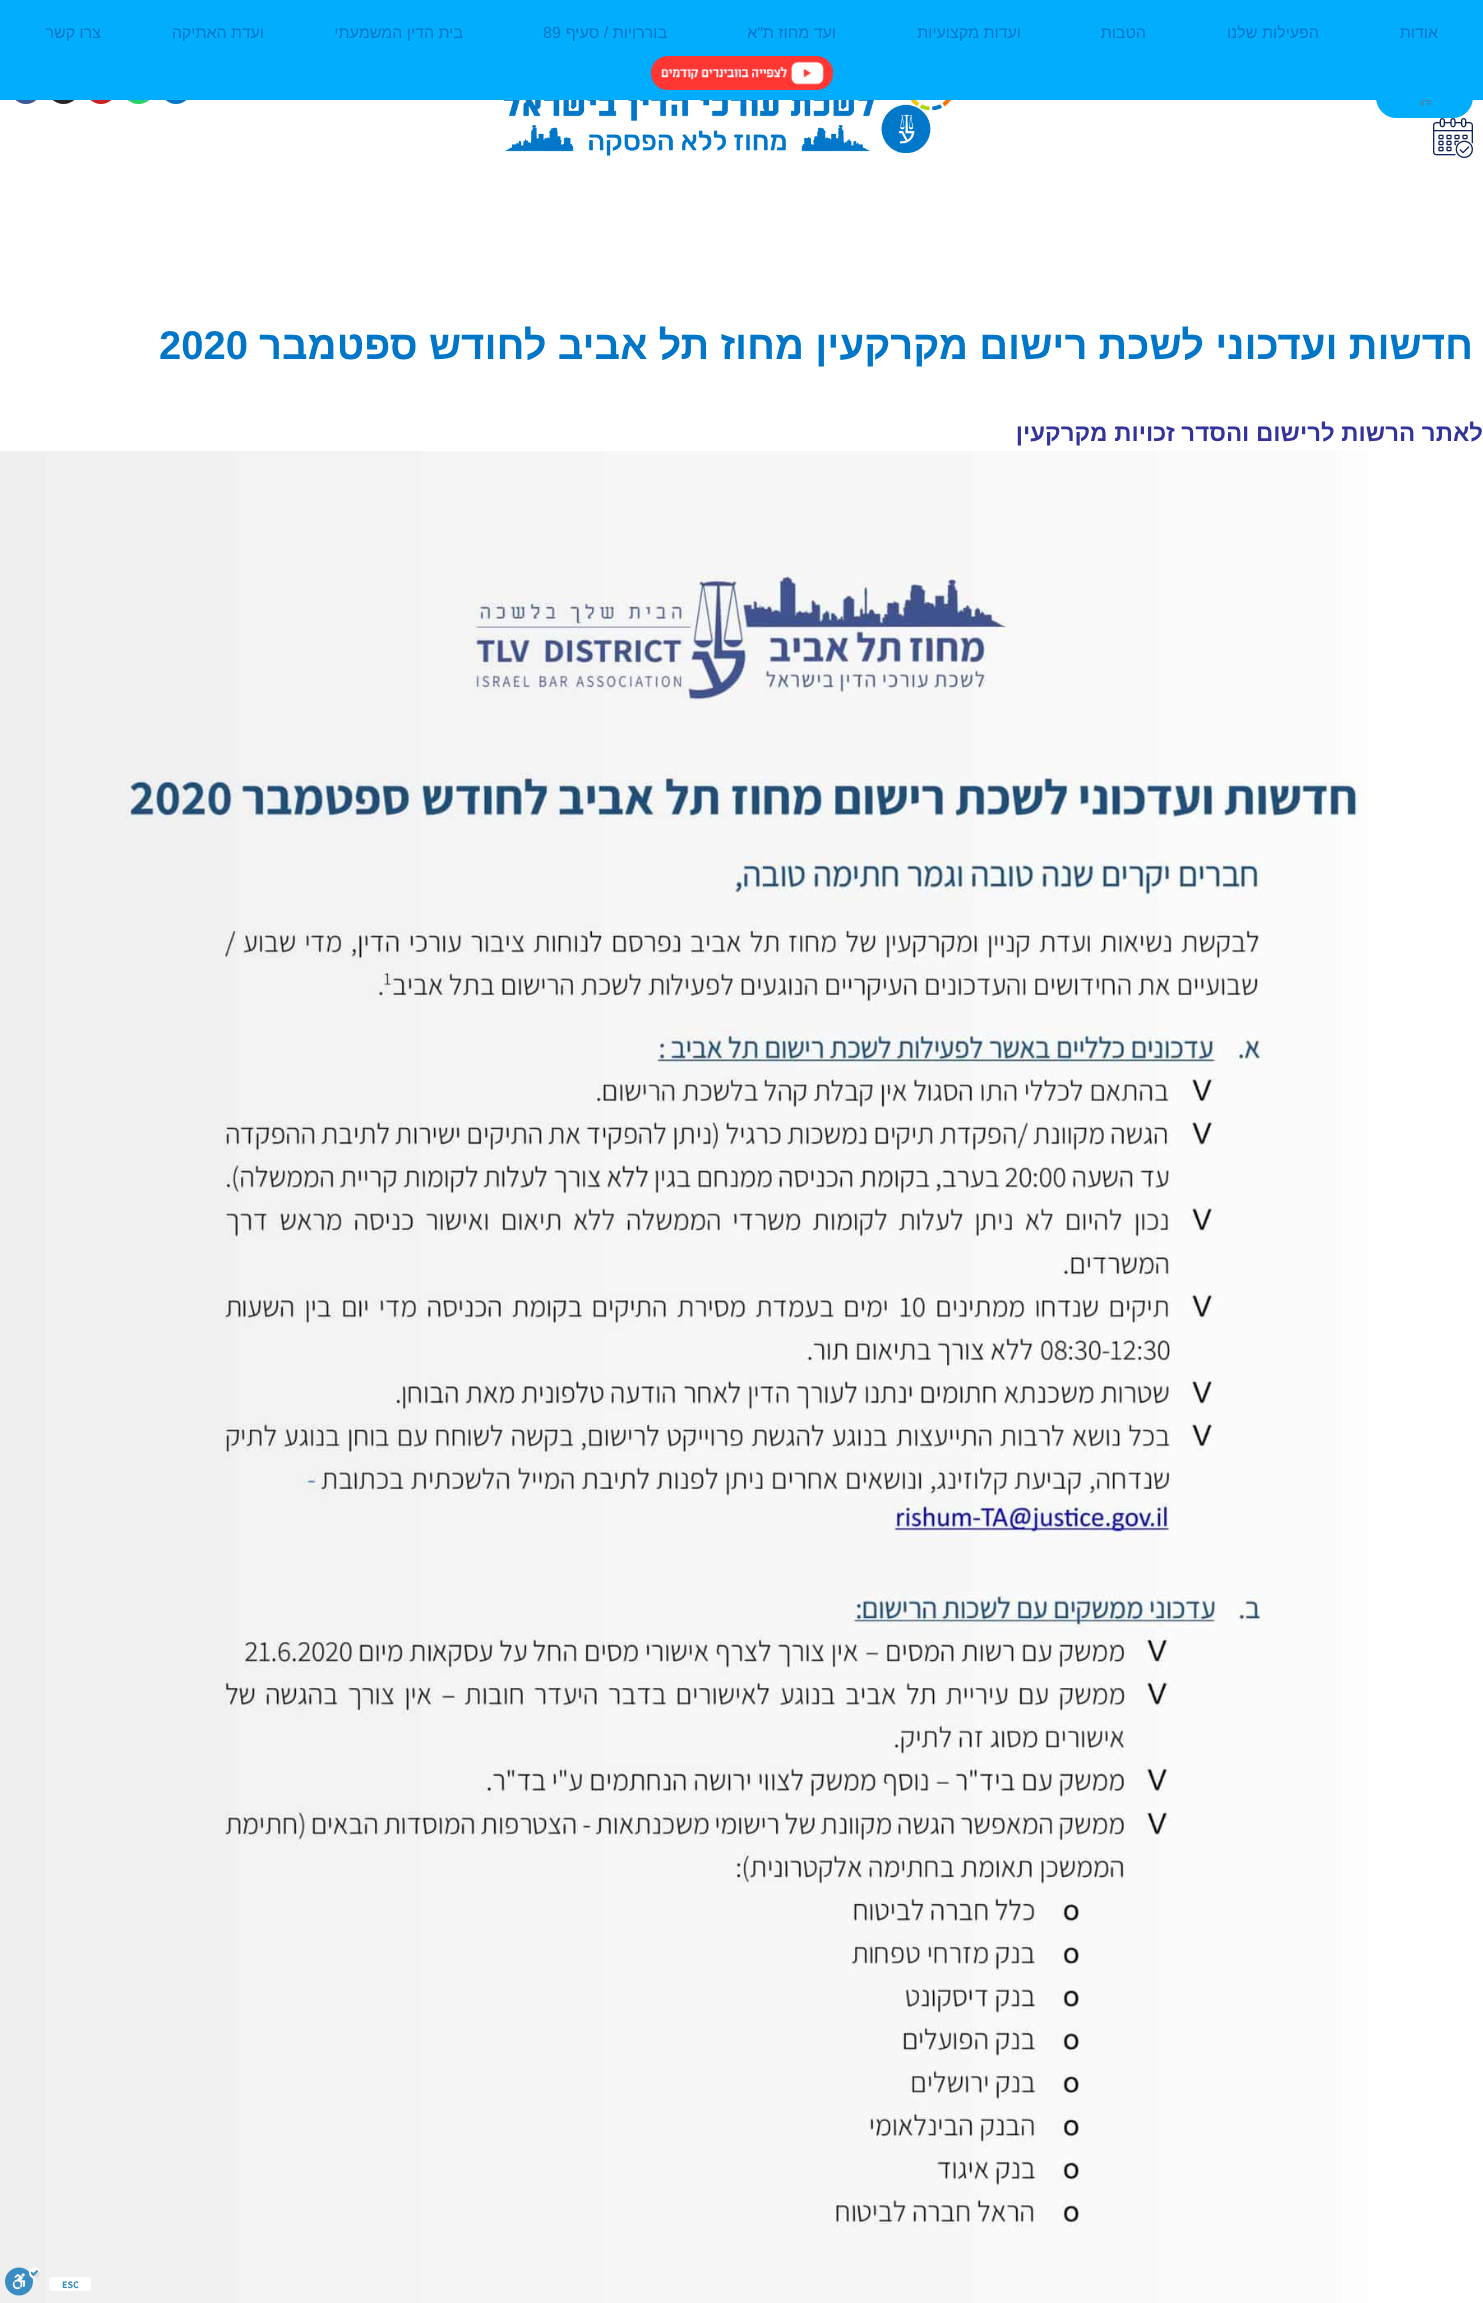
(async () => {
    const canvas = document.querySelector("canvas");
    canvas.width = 1483;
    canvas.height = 2303;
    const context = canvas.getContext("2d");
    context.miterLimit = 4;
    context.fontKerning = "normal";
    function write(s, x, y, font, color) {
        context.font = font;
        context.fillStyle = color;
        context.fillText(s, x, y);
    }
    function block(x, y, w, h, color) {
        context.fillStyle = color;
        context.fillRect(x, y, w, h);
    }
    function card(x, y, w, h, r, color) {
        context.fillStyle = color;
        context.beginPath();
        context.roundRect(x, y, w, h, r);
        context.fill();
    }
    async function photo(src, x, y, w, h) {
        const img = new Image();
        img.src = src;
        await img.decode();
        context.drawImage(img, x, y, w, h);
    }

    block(0, 0, 1483, 2303, "rgb(255, 255, 255)");
    card(1376, 77, 97, 41, 20.5, "rgb(2, 173, 253)");
    card(160, 71, 32, 33, 16, "rgb(0, 118, 200)");
    context.fillStyle = "rgb(37, 211, 102)";
    context.beginPath();
    context.arc(138.5, 87.5, 16.5, 0, Math.PI * 2);
    context.fill();
    card(85, 71, 32, 33, 16, "rgb(205, 32, 31)");
    context.fillStyle = "rgb(38, 38, 38)";
    context.beginPath();
    context.arc(63.5, 87.5, 16.5, 0, Math.PI * 2);
    context.fill();
    card(10, 71, 32, 33, 16, "rgb(59, 89, 152)");
    block(0, 0, 1483, 100, "rgb(2, 173, 253)");
    context.direction = "rtl";
    write("אודות", 1438, 38, "16px Liberation Sans", "rgb(0, 118, 200)");
    write("הפעילות שלנו", 1319, 38, "16px Liberation Sans", "rgb(0, 118, 200)");
    write("הטבות", 1146, 38, "16px Liberation Sans", "rgb(0, 118, 200)");
    write("ועדות מקצועיות", 1021, 38, "16px Liberation Sans", "rgb(0, 118, 200)");
    write("ועד מחוז ת\"א", 836, 38, "16px Liberation Sans", "rgb(0, 118, 200)");
    write("בוררויות / סעיף", 667, 38, "16px Liberation Sans", "rgb(0, 118, 200)");
    context.direction = "ltr";
    write("89", 543, 38, "16px Liberation Sans", "rgb(0, 118, 200)");
    context.direction = "rtl";
    write("בית הדין המשמעתי", 463, 38, "16px Liberation Sans", "rgb(0, 118, 200)");
    write("ועדת האתיקה", 264, 38, "16px Liberation Sans", "rgb(0, 118, 200)");
    write("צרו קשר", 101, 38, "16px Liberation Sans", "rgb(0, 118, 200)");
    await photo("media/1.png", 651, 56, 182, 34);
    await photo("media/2.png", 1420, 100, 11, 6);
    await photo("media/3.png", 1433, 118, 40, 40);
    await photo("media/4.png", 504, 100, 448, 56);
    write("חדשות ועדכוני לשכת רישום מקרקעין מחוז תל אביב לחודש ספטמבר", 1473, 359, "bold 40px Liberation Sans", "rgb(0, 118, 200)");
    context.direction = "ltr";
    write("2020", 159, 359, "bold 40px Liberation Sans", "rgb(0, 118, 200)");
    context.direction = "rtl";
    write("לאתר הרשות לרישום והסדר זכויות מקרקעין", 1483, 441, "bold 24px Liberation Sans", "rgb(51, 51, 153)");
    await photo("media/5.png", 0, 451, 1368, 1852);
    card(49, 2277, 42, 14, 4, "rgb(255, 255, 255)");
    context.direction = "ltr";
    write("ESC", 62, 2288, "bold 10px Assistant", "rgb(58, 141, 194)");
    await photo("media/6.png", 5, 2267, 35, 29);
})();
